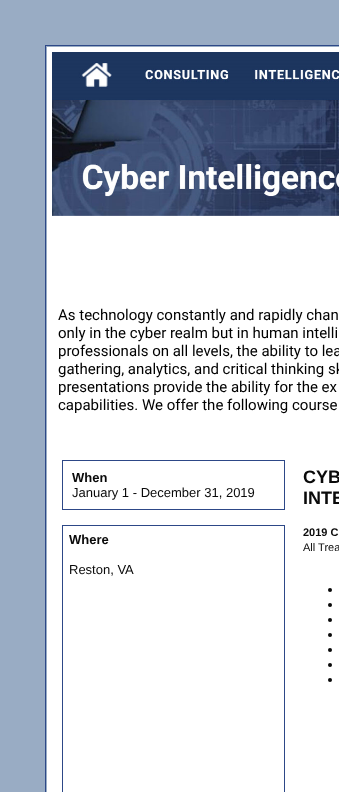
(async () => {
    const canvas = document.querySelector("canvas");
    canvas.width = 339;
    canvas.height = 792;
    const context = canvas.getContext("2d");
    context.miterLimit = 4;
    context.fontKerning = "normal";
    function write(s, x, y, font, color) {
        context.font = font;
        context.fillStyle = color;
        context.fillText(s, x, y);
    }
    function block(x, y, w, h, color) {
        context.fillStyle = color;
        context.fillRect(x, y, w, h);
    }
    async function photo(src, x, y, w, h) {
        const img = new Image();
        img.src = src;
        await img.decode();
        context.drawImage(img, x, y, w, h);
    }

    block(0, 0, 339, 792, "rgb(153, 172, 196)");
    context.strokeStyle = "rgb(45, 72, 135)";
    context.strokeRect(45.5, 45.5, 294, 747);
    block(47, 47, 292, 745, "rgb(255, 255, 255)");
    await photo("media/1.png", 52, 52, 287, 164);
    write("As technology constantly and rapidly chan", 58, 320, "15px Roboto", "rgb(0, 0, 0)");
    write("only in the cyber realm but in human intelli", 58, 338, "15px Roboto", "rgb(0, 0, 0)");
    write("professionals on all levels, the ability to lea", 58, 356, "15px Roboto", "rgb(0, 0, 0)");
    write("gathering, analytics, and critical thinking sk", 58, 374, "15px Roboto", "rgb(0, 0, 0)");
    write("presentations provide the ability for the ex", 58, 392, "15px Roboto", "rgb(0, 0, 0)");
    write("capabilities. We offer the following course", 58, 410, "15px Roboto", "rgb(0, 0, 0)");
    context.strokeRect(62.5, 460.5, 222, 49);
    write("When", 72, 482, "bold 13px Liberation Sans", "rgb(10, 10, 10)");
    write("January 1 - December 31, 2019", 72, 497, "13px Liberation Sans", "rgb(10, 10, 10)");
    context.strokeRect(62.5, 525.5, 222, 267);
    write("Where", 69, 544, "bold 13px Liberation Sans", "rgb(10, 10, 10)");
    write("Reston, VA", 69, 574, "13px Liberation Sans", "rgb(10, 10, 10)");
    write("CYB", 303, 483, "bold 18px Liberation Sans", "rgb(10, 10, 10)");
    write("INTE", 303, 504, "bold 18px Liberation Sans", "rgb(10, 10, 10)");
    write("2019 C", 303, 536, "bold 11px Liberation Sans", "rgb(10, 10, 10)");
    write("All Trea", 303, 551, "11px Liberation Sans", "rgb(10, 10, 10)");
    context.beginPath();
    context.arc(330, 590, 2, 0, Math.PI * 2);
    context.fill();
    context.beginPath();
    context.arc(330, 605, 2, 0, Math.PI * 2);
    context.fill();
    context.beginPath();
    context.arc(330, 620, 2, 0, Math.PI * 2);
    context.fill();
    context.beginPath();
    context.arc(330, 635, 2, 0, Math.PI * 2);
    context.fill();
    context.beginPath();
    context.arc(330, 650, 2, 0, Math.PI * 2);
    context.fill();
    context.beginPath();
    context.arc(330, 665, 2, 0, Math.PI * 2);
    context.fill();
    context.beginPath();
    context.arc(330, 680, 2, 0, Math.PI * 2);
    context.fill();
})();
